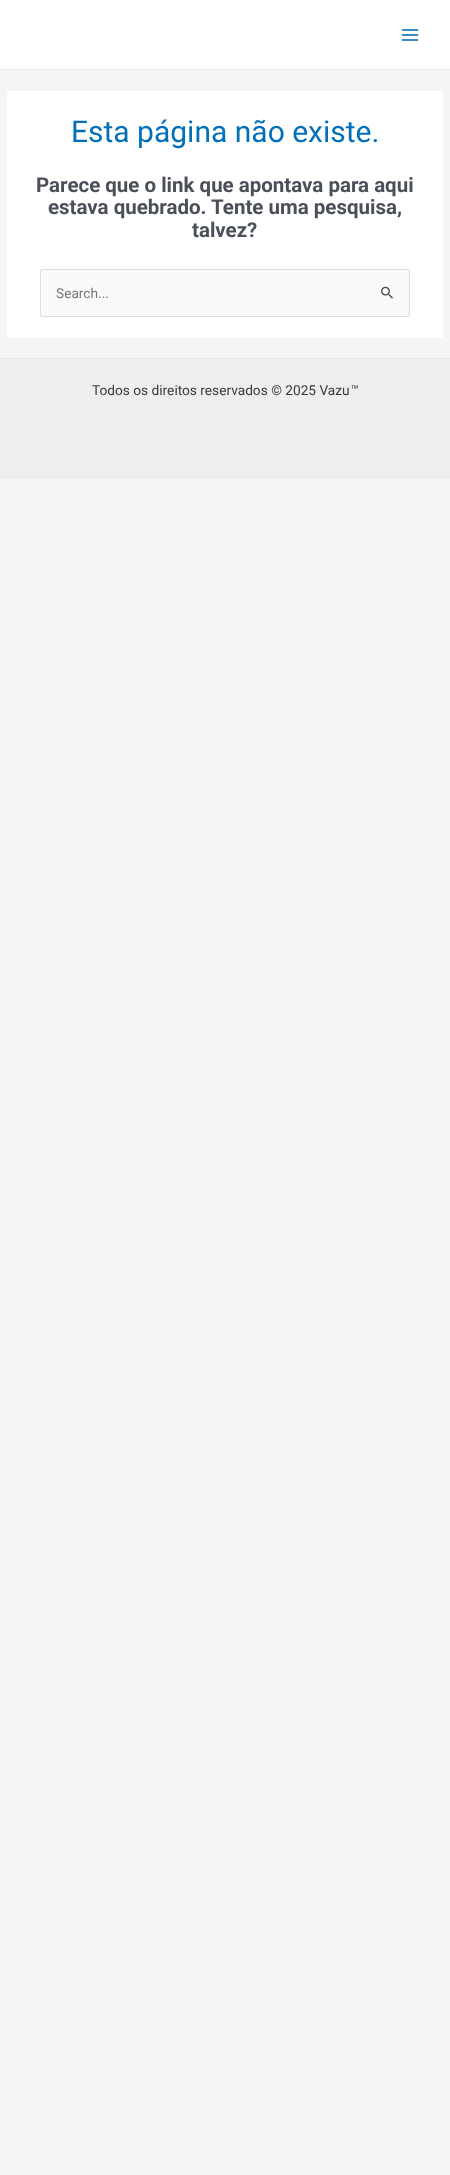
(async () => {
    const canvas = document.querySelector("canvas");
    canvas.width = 450;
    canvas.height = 2175;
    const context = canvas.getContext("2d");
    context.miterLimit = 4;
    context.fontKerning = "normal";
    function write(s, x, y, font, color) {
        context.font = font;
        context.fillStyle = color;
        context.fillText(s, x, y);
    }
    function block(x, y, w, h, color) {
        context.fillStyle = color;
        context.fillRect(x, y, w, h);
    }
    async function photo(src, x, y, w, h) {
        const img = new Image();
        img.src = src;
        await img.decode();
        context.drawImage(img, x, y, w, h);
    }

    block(0, 0, 450, 2175, "rgb(245, 245, 245)");
    block(0, 0, 450, 69, "rgb(255, 255, 255)");
    block(0, 69, 450, 1, "rgb(234, 234, 234)");
    await photo("media/1.png", 401, 29, 18, 12);
    block(7, 91, 436, 247, "rgb(255, 255, 255)");
    write("Esta página não existe.", 71, 142, "30px Roboto", "rgb(1, 112, 185)");
    write("Parece que o link que apontava para aqui", 36, 192, "bold 20.5px Roboto", "rgb(75, 79, 88)");
    write("estava quebrado. Tente uma pesquisa,", 48, 214, "bold 20.5px Roboto", "rgb(75, 79, 88)");
    write("talvez?", 192, 237, "bold 20.5px Roboto", "rgb(75, 79, 88)");
    context.fillStyle = "rgb(250, 250, 250)";
    context.beginPath();
    context.roundRect(40.5, 269.5, 369, 47, 1.5);
    context.fill();
    context.strokeStyle = "rgb(221, 221, 221)";
    context.stroke();
    write("Search...", 56, 298, "13.7px Roboto", "rgb(117, 117, 117)");
    await photo("media/2.png", 381, 286, 12, 13);
    block(0, 359, 450, 120, "rgb(238, 238, 238)");
    block(0, 358, 450, 1, "rgb(229, 229, 229)");
    write("Todos os direitos reservados © 2025 Vazu", 92, 395, "13.7px Roboto", "rgb(58, 58, 58)");
    write("™", 350, 395, "italic 13.7px Roboto", "rgb(58, 58, 58)");
})();
